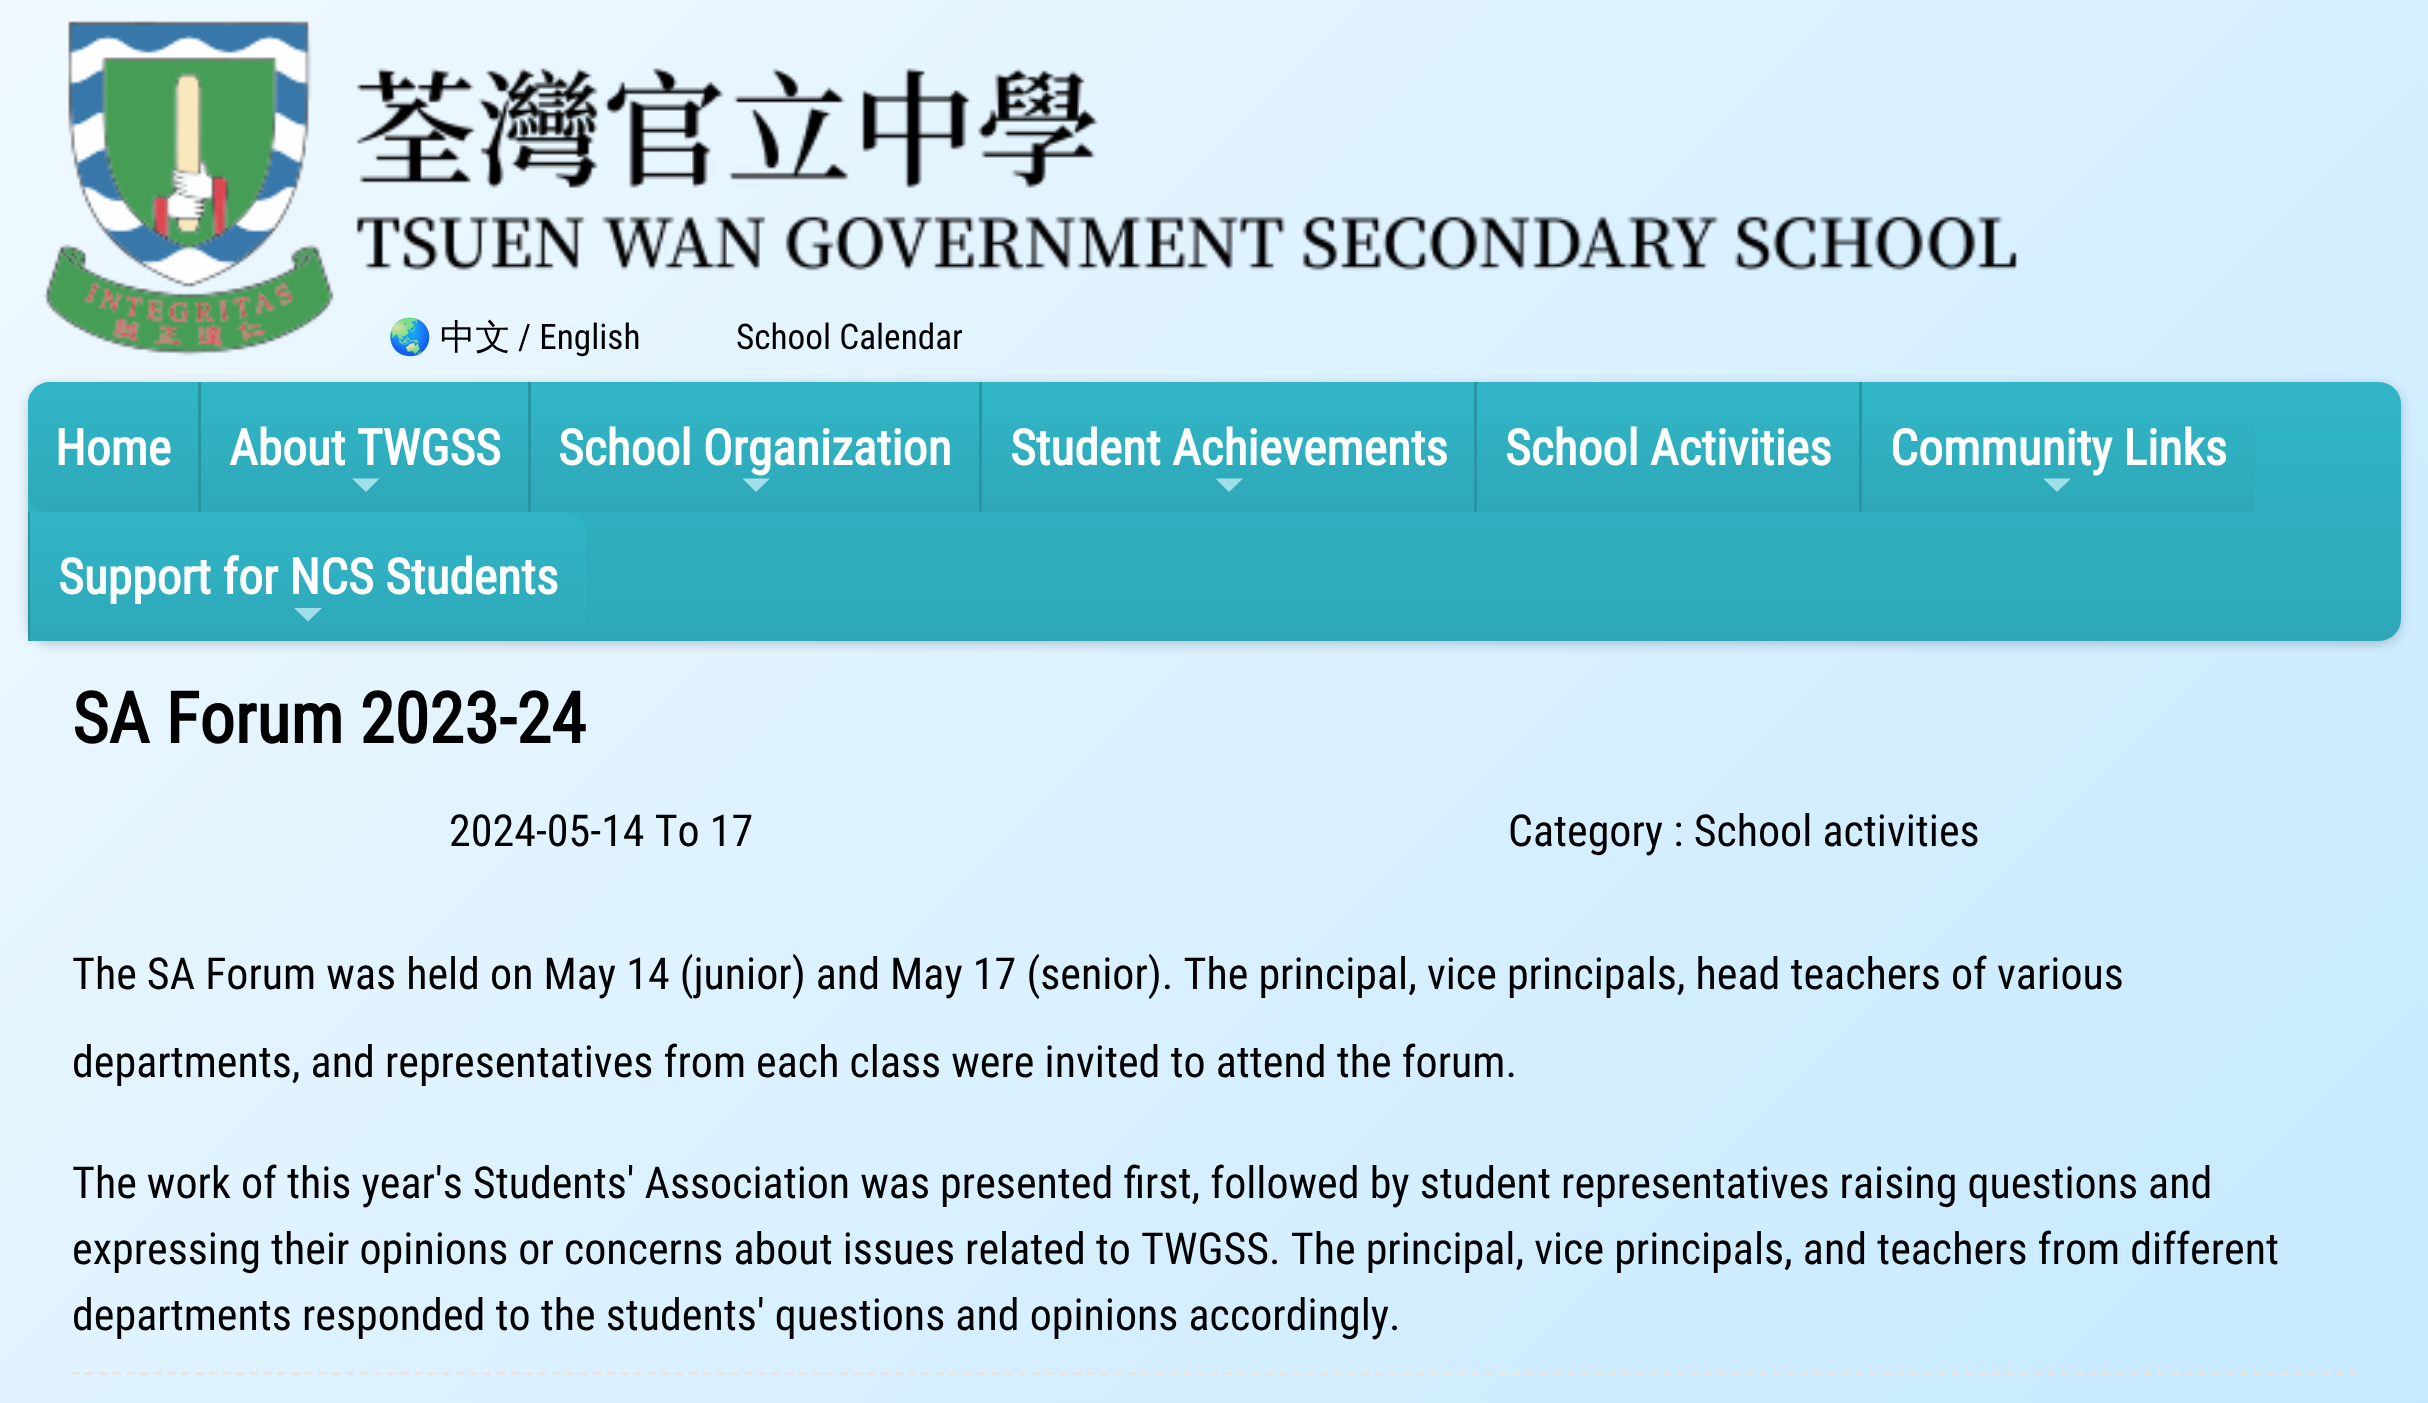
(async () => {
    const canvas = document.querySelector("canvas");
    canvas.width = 2428;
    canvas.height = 1403;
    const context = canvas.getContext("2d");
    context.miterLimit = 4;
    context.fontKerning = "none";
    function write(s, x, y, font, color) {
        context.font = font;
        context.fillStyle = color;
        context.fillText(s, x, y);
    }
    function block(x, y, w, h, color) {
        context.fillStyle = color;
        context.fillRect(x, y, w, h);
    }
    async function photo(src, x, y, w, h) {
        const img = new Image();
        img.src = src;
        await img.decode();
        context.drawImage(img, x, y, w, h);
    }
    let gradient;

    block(0, 0, 2428, 1403, "rgb(255, 255, 255)");
    gradient = context.createLinearGradient(-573, 573, 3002, 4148);
    gradient.addColorStop(0, "rgb(240, 249, 255)");
    gradient.addColorStop(0.47, "rgb(203, 235, 255)");
    gradient.addColorStop(1, "rgb(161, 219, 255)");
    context.fillStyle = gradient;
    context.fillRect(0, 0, 2428, 1403);
    await photo("media/1.png", 43, 21, 1974, 335);
    write("🌏", 388, 349, "35.25px Noto Color Emoji", "rgb(0, 0, 0)");
    write("中文", 440, 349, "500 35.25px WenQuanYi Zen Hei", "rgb(0, 0, 0)");
    write("/ English", 518, 349, "35.25px Roboto Condensed", "rgb(0, 0, 0)");
    write("School Calendar", 736, 349, "35.25px Roboto Condensed", "rgb(0, 0, 0)");
    context.fillStyle = "rgba(0, 0, 0, 0.2)";
    context.filter = "blur(5.5px)";
    context.beginPath();
    context.roundRect(28, 385, 2373, 259, 22);
    context.fill();
    context.filter = "none";
    gradient = context.createLinearGradient(1214, 382, 1214, 641);
    gradient.addColorStop(0, "rgb(49, 182, 199)");
    gradient.addColorStop(1, "rgb(46, 168, 184)");
    context.fillStyle = gradient;
    context.beginPath();
    context.roundRect(28, 382, 2373, 259, 22);
    context.fill();
    gradient = context.createLinearGradient(113, 382, 113, 512);
    gradient.addColorStop(0, "rgb(49, 182, 199)");
    gradient.addColorStop(1, "rgb(46, 168, 184)");
    context.fillStyle = gradient;
    context.beginPath();
    context.roundRect(28, 382, 170, 130, [22, 0, 0, 22]);
    context.fill();
    write("Home", 55, 465, "bold 49.5px Roboto Condensed", "rgb(255, 255, 255)");
    block(198, 382, 3, 130, "rgb(41, 148, 162)");
    gradient = context.createLinearGradient(364, 382, 364, 512);
    gradient.addColorStop(0, "rgb(49, 182, 199)");
    gradient.addColorStop(1, "rgb(46, 168, 184)");
    context.fillStyle = gradient;
    context.fillRect(201, 421, 327, 91);
    write("About TWGSS", 229, 465, "bold 49.5px Roboto Condensed", "rgb(255, 255, 255)");
    context.fillStyle = "rgb(161, 223, 232)";
    context.beginPath();
    context.moveTo(352, 478.5);
    context.lineTo(379.5, 478.5);
    context.lineTo(366, 492);
    context.closePath();
    context.fill();
    block(528, 382, 3, 130, "rgb(41, 148, 162)");
    gradient = context.createLinearGradient(755, 382, 755, 512);
    gradient.addColorStop(0, "rgb(49, 182, 199)");
    gradient.addColorStop(1, "rgb(46, 168, 184)");
    context.fillStyle = gradient;
    context.fillRect(531, 421, 448, 91);
    write("School Organization", 558, 465, "bold 49.5px Roboto Condensed", "rgb(255, 255, 255)");
    context.fillStyle = "rgb(161, 223, 232)";
    context.beginPath();
    context.moveTo(742.5, 478.5);
    context.lineTo(770, 478.5);
    context.lineTo(756, 492);
    context.closePath();
    context.fill();
    block(979, 382, 3, 130, "rgb(41, 148, 162)");
    gradient = context.createLinearGradient(1228, 382, 1228, 512);
    gradient.addColorStop(0, "rgb(49, 182, 199)");
    gradient.addColorStop(1, "rgb(46, 168, 184)");
    context.fillStyle = gradient;
    context.fillRect(982, 421, 492, 91);
    write("Student Achievements", 1010, 465, "bold 49.5px Roboto Condensed", "rgb(255, 255, 255)");
    context.fillStyle = "rgb(161, 223, 232)";
    context.beginPath();
    context.moveTo(1215.5, 478.5);
    context.lineTo(1243, 478.5);
    context.lineTo(1229, 492);
    context.closePath();
    context.fill();
    block(1474, 382, 3, 130, "rgb(41, 148, 162)");
    gradient = context.createLinearGradient(1668, 382, 1668, 512);
    gradient.addColorStop(0, "rgb(49, 182, 199)");
    gradient.addColorStop(1, "rgb(46, 168, 184)");
    context.fillStyle = gradient;
    context.fillRect(1477, 421, 382, 91);
    write("School Activities", 1505, 465, "bold 49.5px Roboto Condensed", "rgb(255, 255, 255)");
    block(1859, 382, 3, 130, "rgb(41, 148, 162)");
    gradient = context.createLinearGradient(2058, 382, 2058, 512);
    gradient.addColorStop(0, "rgb(49, 182, 199)");
    gradient.addColorStop(1, "rgb(46, 168, 184)");
    context.fillStyle = gradient;
    context.fillRect(1862, 421, 393, 91);
    write("Community Links", 1890, 465, "bold 49.5px Roboto Condensed", "rgb(255, 255, 255)");
    context.fillStyle = "rgb(161, 223, 232)";
    context.beginPath();
    context.moveTo(2043, 478.5);
    context.lineTo(2071, 478.5);
    context.lineTo(2057, 492);
    context.closePath();
    context.fill();
    block(28, 512, 2, 129, "rgb(41, 148, 162)");
    gradient = context.createLinearGradient(308, 512, 308, 641);
    gradient.addColorStop(0, "rgb(49, 182, 199)");
    gradient.addColorStop(1, "rgb(46, 168, 184)");
    context.fillStyle = gradient;
    context.beginPath();
    context.roundRect(30, 512, 556, 129, [0, 22, 22, 0]);
    context.fill();
    write("Support for NCS Students", 58, 594, "bold 49.5px Roboto Condensed", "rgb(255, 255, 255)");
    context.fillStyle = "rgb(161, 223, 232)";
    context.beginPath();
    context.moveTo(294, 608);
    context.lineTo(322, 608);
    context.lineTo(308, 621.5);
    context.closePath();
    context.fill();
    write("SA Forum 2023-24", 72, 743, "bold 70.5px Roboto Condensed", "rgb(0, 0, 0)");
    write("2024-05-14 To 17", 449, 846, "44px Roboto Condensed", "rgb(0, 0, 0)");
    write("Category : School activities", 1508, 846, "44px Roboto Condensed", "rgb(0, 0, 0)");
    context.beginPath();
    context.moveTo(71.5, 1373.5);
    context.lineTo(2357, 1373.5);
    context.strokeStyle = "rgb(229, 229, 229)";
    context.lineWidth = 2.8;
    context.setLineDash([8.25, 5.47]);
    context.stroke();
    write("The SA Forum was held on May 14 (junior) and May 17 (senior). The principal, vice principals, head teachers of various", 72, 989, "44px Roboto Condensed", "rgb(0, 0, 0)");
    write("departments, and representatives from each class were invited to attend the forum.", 72, 1077, "44px Roboto Condensed", "rgb(0, 0, 0)");
    write("The work of this year's Students' Association was presented first, followed by student representatives raising questions and", 72, 1198, "44px Roboto Condensed", "rgb(0, 0, 0)");
    write("expressing their opinions or concerns about issues related to TWGSS. The principal, vice principals, and teachers from different", 72, 1264, "44px Roboto Condensed", "rgb(0, 0, 0)");
    write("departments responded to the students' questions and opinions accordingly.", 72, 1330, "44px Roboto Condensed", "rgb(0, 0, 0)");
})();
